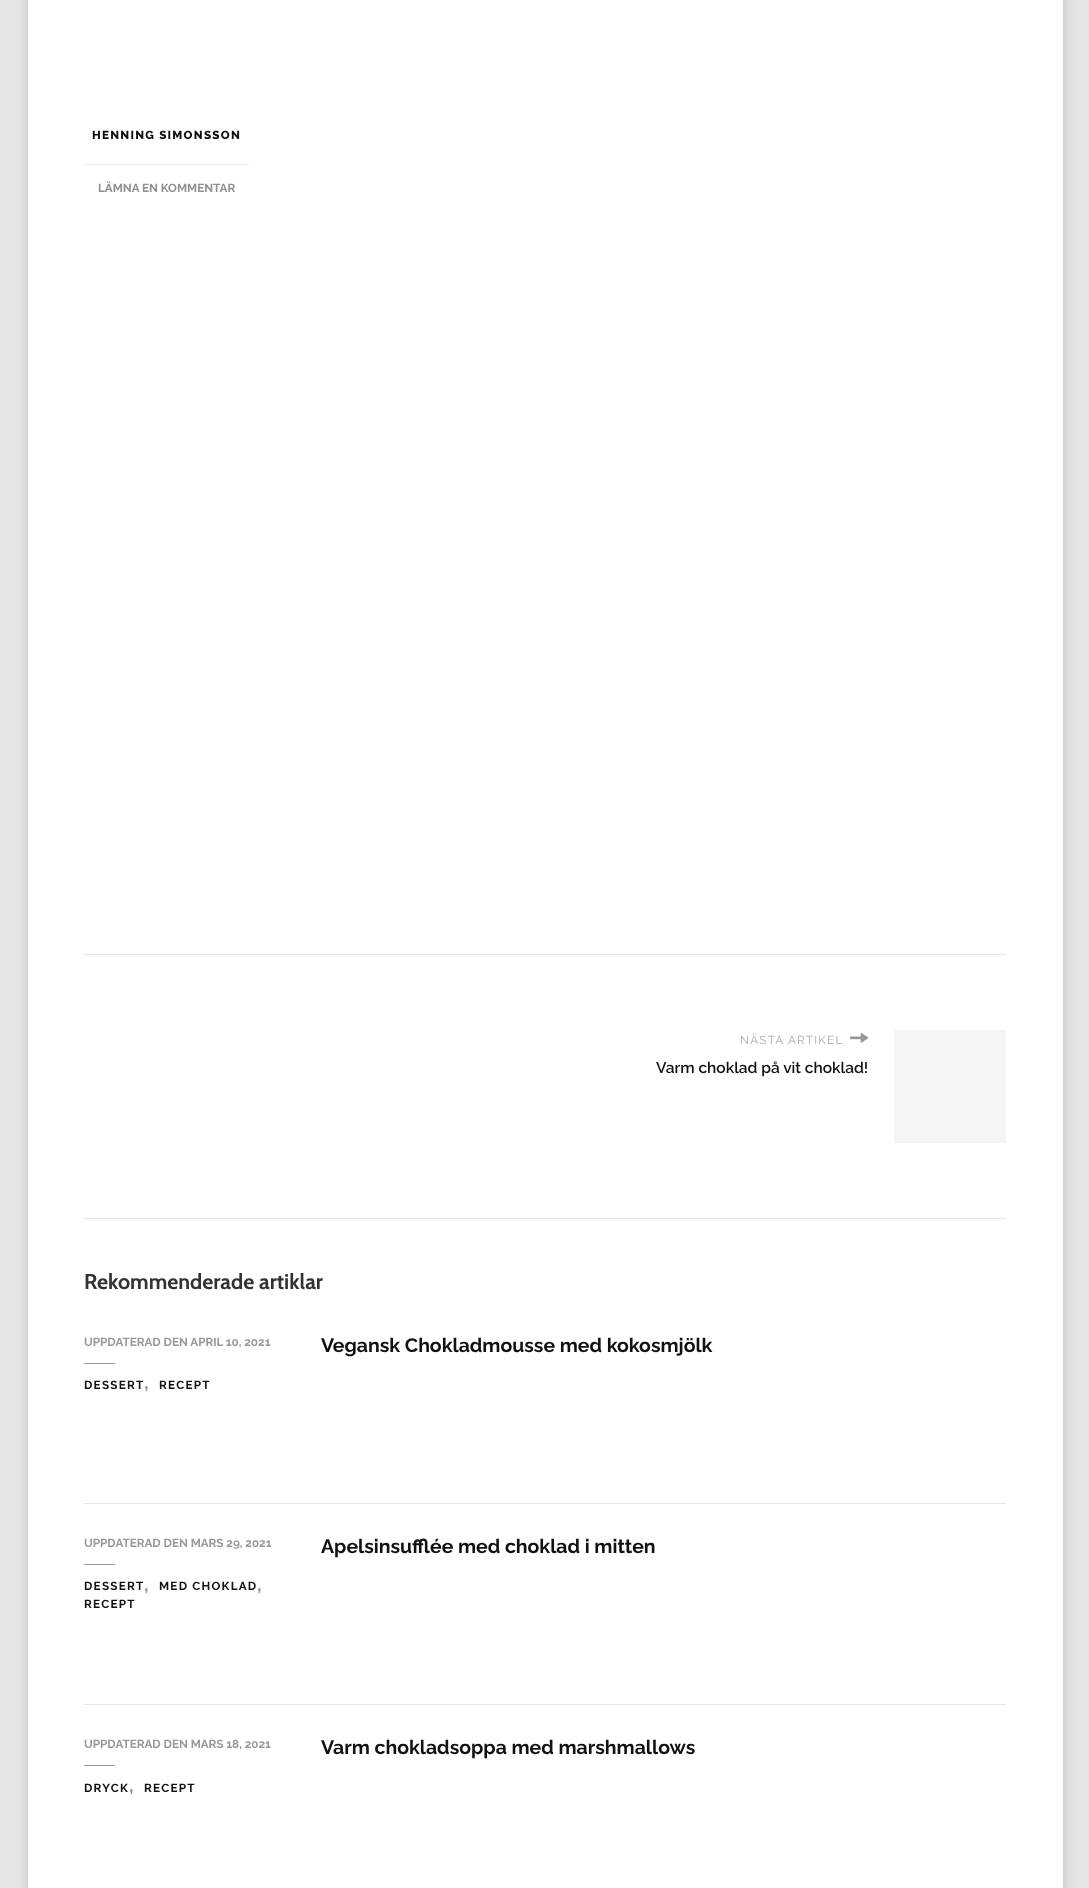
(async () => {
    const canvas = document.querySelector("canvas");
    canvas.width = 1089;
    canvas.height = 1888;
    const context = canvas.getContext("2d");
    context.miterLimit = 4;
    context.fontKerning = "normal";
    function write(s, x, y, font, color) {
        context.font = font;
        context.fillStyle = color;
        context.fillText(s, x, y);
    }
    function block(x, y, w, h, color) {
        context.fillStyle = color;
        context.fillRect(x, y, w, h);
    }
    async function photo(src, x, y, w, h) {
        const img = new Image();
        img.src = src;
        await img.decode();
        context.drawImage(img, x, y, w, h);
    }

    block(0, 0, 1089, 1888, "rgb(229, 229, 229)");
    context.fillStyle = "rgba(0, 0, 0, 0.16)";
    context.filter = "blur(6px)";
    context.beginPath();
    context.rect(28, -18, 1035, 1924);
    context.fill();
    context.filter = "none";
    block(28, 0, 1035, 1888, "rgb(255, 255, 255)");
    context.letterSpacing = "1.25px";
    write("HENNING SIMONSSON", 92, 139, "800 11.7px Raleway", "rgb(17, 17, 17)");
    block(84, 164, 165, 1, "rgb(237, 237, 237)");
    context.letterSpacing = "0px";
    write("LÄMNA EN KOMMENTAR", 98, 192, "bold 11.7px Raleway", "rgb(144, 144, 144)");
    block(84, 954, 922, 1, "rgb(230, 230, 230)");
    context.letterSpacing = "1.25px";
    write("NÄSTA ARTIKEL", 740, 1044, "11.7px Raleway", "rgb(165, 168, 178)");
    await photo("media/1.png", 850, 1033, 19, 10);
    context.letterSpacing = "0px";
    write("Varm choklad på vit choklad!", 656, 1073, "600 15.5px Raleway", "rgb(17, 17, 17)");
    block(894, 1030, 112, 113, "rgb(245, 245, 245)");
    block(84, 1218, 922, 1, "rgb(230, 230, 230)");
    write("Rekommenderade artiklar", 84, 1289, "bold 21.4px Cabin", "rgb(51, 51, 51)");
    block(84, 1503, 922, 1, "rgb(230, 230, 230)");
    write("UPPDATERAD DEN APRIL 10, 2021", 84, 1346, "bold 11.7px Raleway", "rgb(153, 153, 153)");
    block(84, 1363, 31, 1, "rgb(153, 153, 153)");
    context.letterSpacing = "1.25px";
    write("DESSERT", 84, 1389, "bold 11.7px Raleway", "rgb(17, 17, 17)");
    write(",", 144, 1389, "bold 20px Raleway", "rgb(153, 153, 153)");
    write("RECEPT", 159, 1389, "bold 11.7px Raleway", "rgb(17, 17, 17)");
    context.letterSpacing = "0px";
    write("Vegansk Chokladmousse med kokosmjölk", 321, 1352, "bold 19.45px Raleway", "rgb(17, 17, 17)");
    block(84, 1704, 922, 1, "rgb(230, 230, 230)");
    write("UPPDATERAD DEN MARS 29, 2021", 84, 1547, "bold 11.7px Raleway", "rgb(153, 153, 153)");
    block(84, 1564, 31, 1, "rgb(153, 153, 153)");
    context.letterSpacing = "1.25px";
    write("DESSERT", 84, 1590, "bold 11.7px Raleway", "rgb(17, 17, 17)");
    write(",", 144, 1591, "bold 20px Raleway", "rgb(153, 153, 153)");
    write("MED CHOKLAD", 159, 1590, "bold 11.7px Raleway", "rgb(17, 17, 17)");
    write(",", 257, 1591, "bold 20px Raleway", "rgb(153, 153, 153)");
    write("RECEPT", 84, 1608, "bold 11.7px Raleway", "rgb(17, 17, 17)");
    context.letterSpacing = "0px";
    write("Apelsinsufflée med choklad i mitten", 321, 1553, "bold 19.45px Raleway", "rgb(17, 17, 17)");
    write("UPPDATERAD DEN MARS 18, 2021", 84, 1748, "bold 11.7px Raleway", "rgb(153, 153, 153)");
    block(84, 1765, 31, 1, "rgb(153, 153, 153)");
    context.letterSpacing = "1.25px";
    write("DRYCK", 84, 1792, "bold 11.7px Raleway", "rgb(17, 17, 17)");
    write(",", 129, 1792, "bold 20px Raleway", "rgb(153, 153, 153)");
    write("RECEPT", 144, 1792, "bold 11.7px Raleway", "rgb(17, 17, 17)");
    context.letterSpacing = "0px";
    write("Varm chokladsoppa med marshmallows", 321, 1754, "bold 19.45px Raleway", "rgb(17, 17, 17)");
})();
